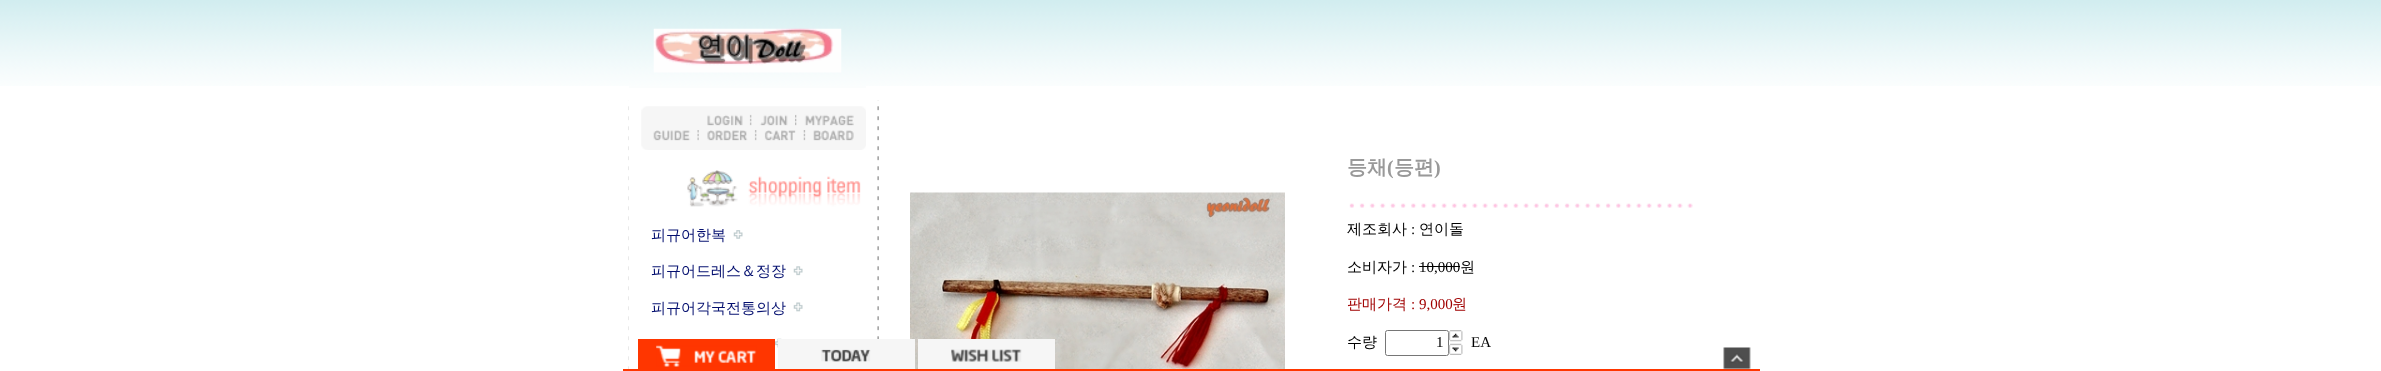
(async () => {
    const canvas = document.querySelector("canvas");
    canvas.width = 2381;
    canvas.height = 371;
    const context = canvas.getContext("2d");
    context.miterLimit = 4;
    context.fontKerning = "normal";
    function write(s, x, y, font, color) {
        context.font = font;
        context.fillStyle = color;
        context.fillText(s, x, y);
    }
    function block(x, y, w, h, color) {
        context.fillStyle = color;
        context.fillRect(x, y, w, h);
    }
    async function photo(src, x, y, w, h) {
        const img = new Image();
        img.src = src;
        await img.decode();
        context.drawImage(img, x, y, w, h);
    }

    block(0, 0, 2381, 371, "rgb(255, 255, 255)");
    await photo("media/1.png", 0, 0, 2381, 86);
    block(629, 86, 237, 2, "rgb(251, 253, 253)");
    await photo("media/2.png", 653, 28, 189, 45);
    await photo("media/3.png", 628, 100, 251, 269);
    await photo("media/4.png", 641, 106, 154, 24);
    await photo("media/5.png", 795, 106, 71, 24);
    await photo("media/6.png", 641, 130, 225, 20);
    await photo("media/7.png", 687, 170, 174, 37);
    write("피규어한복", 651, 240, "500 15px WenQuanYi Zen Hei", "rgb(4, 15, 111)");
    await photo("media/8.png", 733, 230, 10, 9);
    write("피규어드레스＆정장", 651, 276, "500 15px WenQuanYi Zen Hei", "rgb(4, 15, 111)");
    await photo("media/9.png", 793, 266, 10, 10);
    write("피규어각국전통의상", 651, 313, "500 15px WenQuanYi Zen Hei", "rgb(4, 15, 111)");
    await photo("media/10.png", 793, 302, 10, 10);
    await photo("media/11.png", 775, 338, 9, 10);
    await photo("media/12.png", 910, 192, 375, 177);
    write("등채", 1347, 174, "bold 20px WenQuanYi Zen Hei", "rgb(153, 153, 153)");
    write("(", 1387, 174, "bold 20px Liberation Serif", "rgb(153, 153, 153)");
    write("등편", 1394, 174, "bold 20px WenQuanYi Zen Hei", "rgb(153, 153, 153)");
    write(")", 1434, 174, "bold 20px Liberation Serif", "rgb(153, 153, 153)");
    await photo("media/13.png", 1349, 203, 344, 5);
    write("제조회사", 1347, 234, "500 15px WenQuanYi Zen Hei", "rgb(0, 0, 0)");
    write(":", 1411, 234, "15px Liberation Serif", "rgb(0, 0, 0)");
    write("연이돌", 1419, 234, "500 15px WenQuanYi Zen Hei", "rgb(0, 0, 0)");
    write("소비자가", 1347, 272, "500 15px WenQuanYi Zen Hei", "rgb(0, 0, 0)");
    write(": 10,000", 1411, 272, "15px Liberation Serif", "rgb(0, 0, 0)");
    write("원", 1460, 272, "500 15px WenQuanYi Zen Hei", "rgb(0, 0, 0)");
    block(1419, 266, 41, 1, "rgb(0, 0, 0)");
    write("판매가격", 1347, 309, "500 15px WenQuanYi Zen Hei", "rgb(160, 0, 0)");
    write(": 9,000", 1411, 309, "15px Liberation Serif", "rgb(160, 0, 0)");
    write("원", 1452, 309, "500 15px WenQuanYi Zen Hei", "rgb(160, 0, 0)");
    write("수량", 1347, 347, "500 15px WenQuanYi Zen Hei", "rgb(0, 0, 0)");
    context.beginPath();
    context.roundRect(1385.5, 330.5, 63, 25, 2);
    context.strokeStyle = "rgb(118, 118, 118)";
    context.stroke();
    write("1", 1436, 347, "15px Liberation Serif", "rgb(0, 0, 0)");
    await photo("media/14.png", 1448, 330, 15, 12);
    write("EA", 1471, 347, "15px Liberation Serif", "rgb(0, 0, 0)");
    await photo("media/15.png", 1448, 343, 15, 12);
    block(623, 369, 1137, 2, "rgb(255, 54, 0)");
    block(638, 339, 137, 30, "rgb(255, 54, 0)");
    await photo("media/16.png", 656, 345, 101, 22);
    block(778, 339, 137, 30, "rgb(246, 246, 246)");
    await photo("media/17.png", 821, 349, 50, 13);
    block(918, 339, 137, 30, "rgb(246, 246, 246)");
    await photo("media/18.png", 951, 349, 71, 13);
    await photo("media/19.png", 1723, 347, 28, 23);
})();
